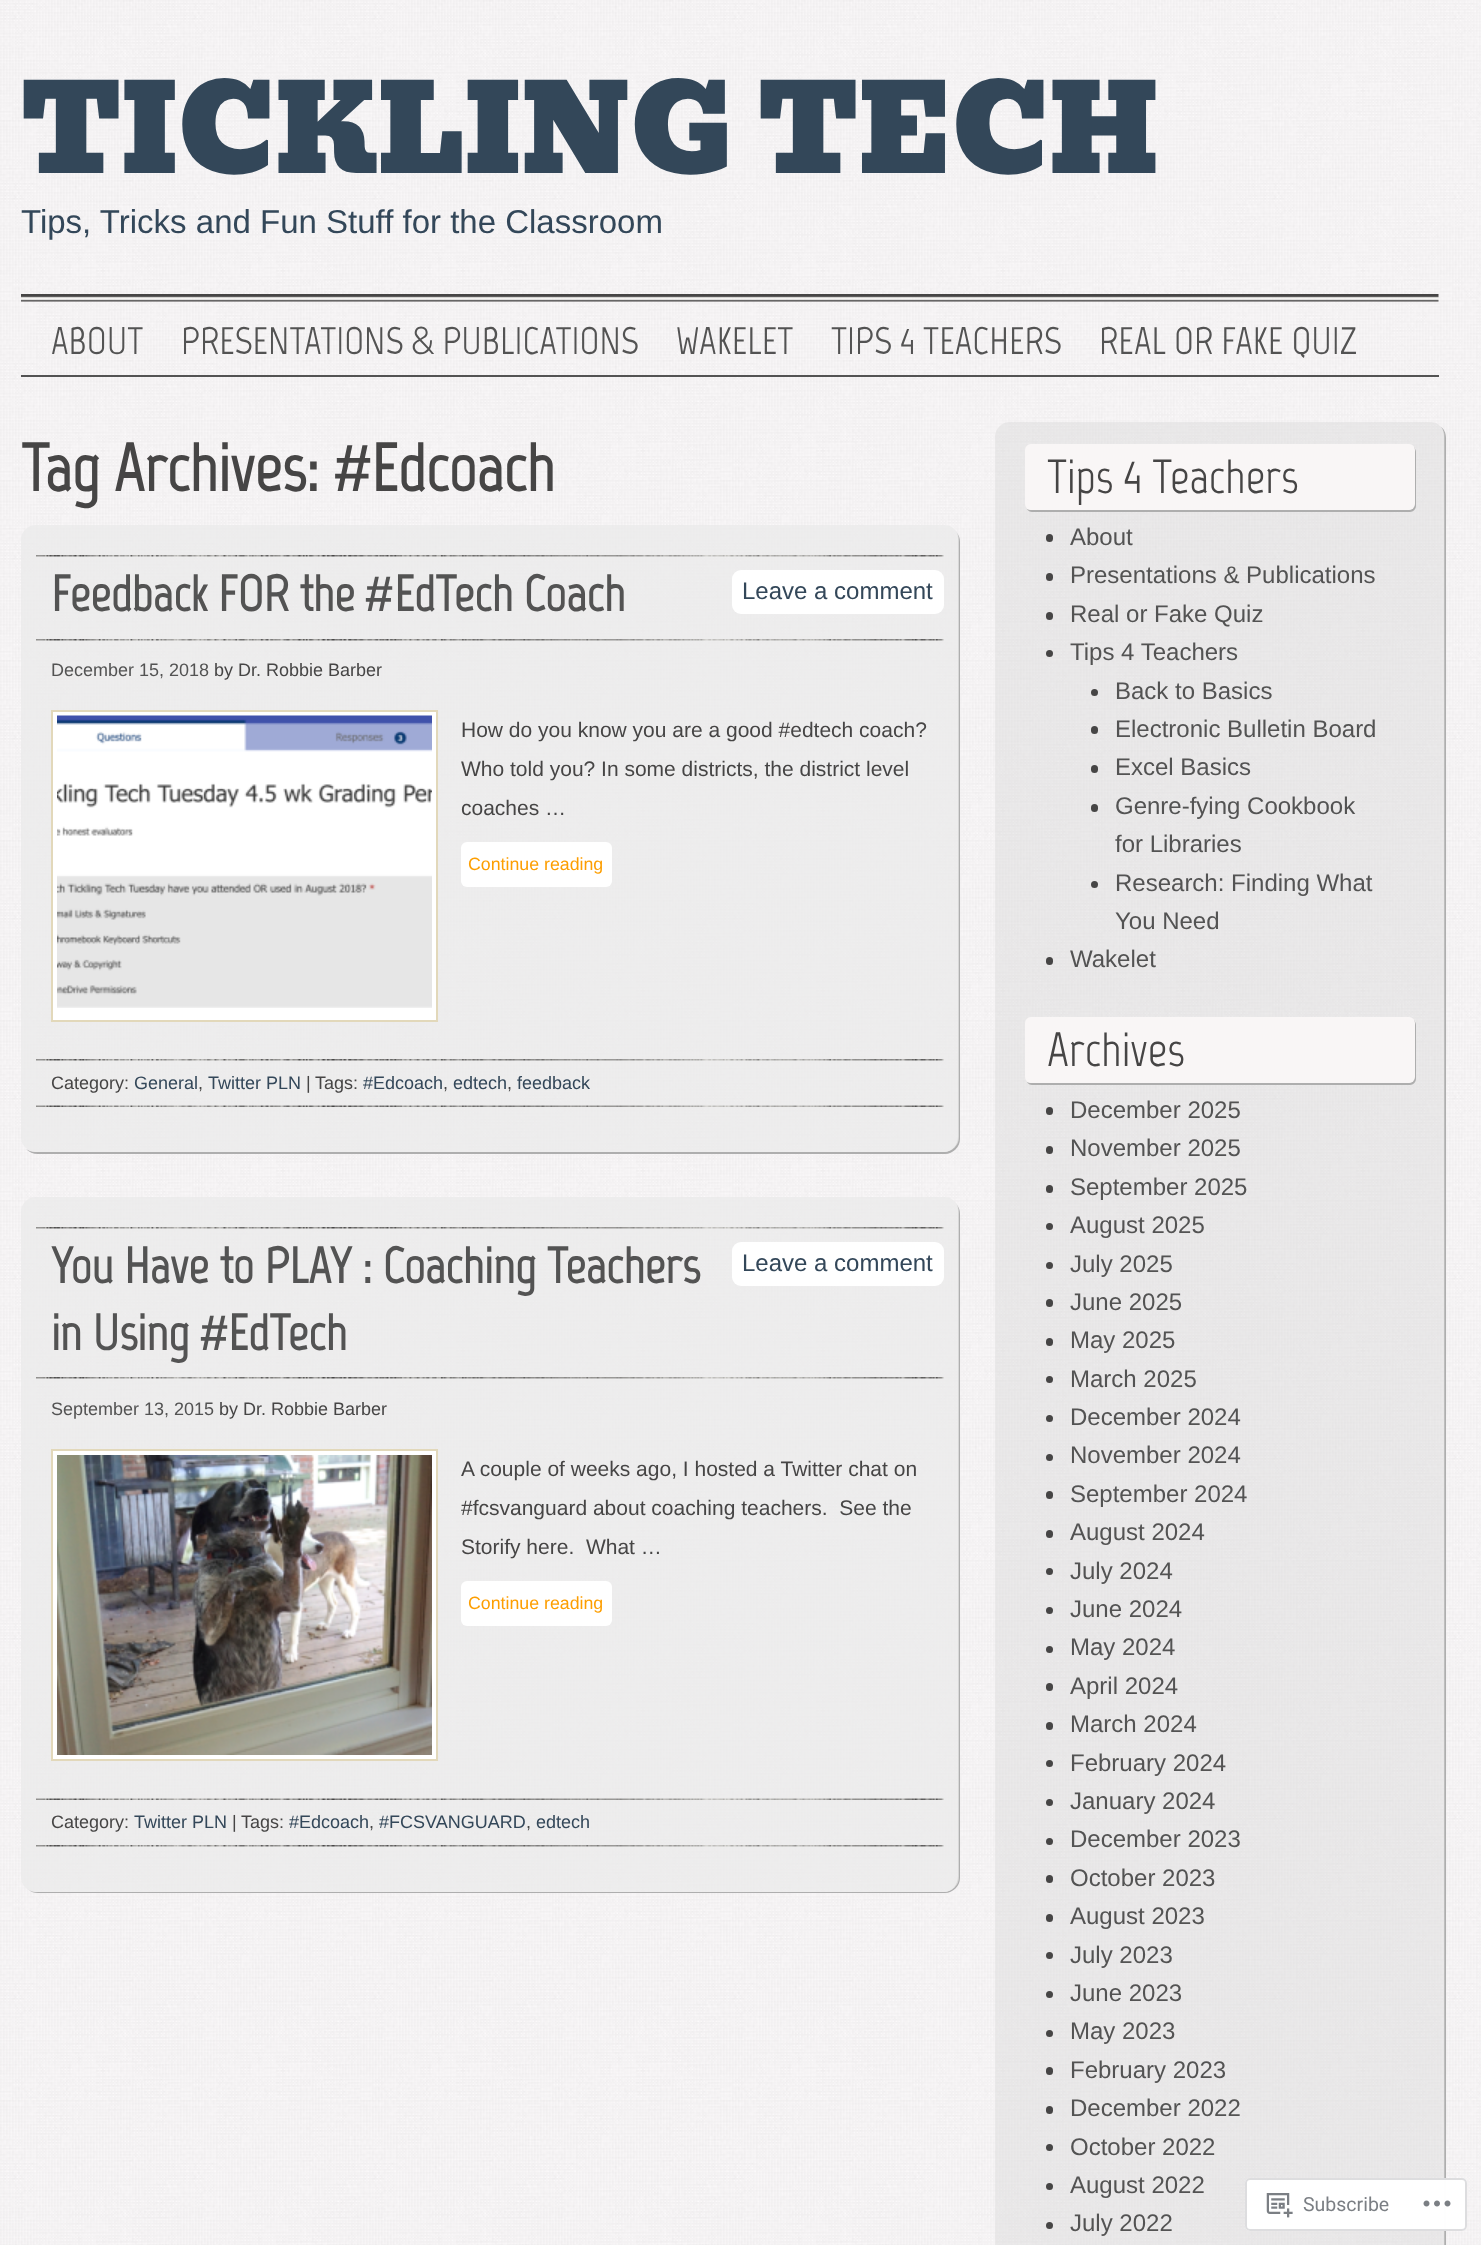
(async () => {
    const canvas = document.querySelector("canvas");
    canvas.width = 1481;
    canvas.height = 2245;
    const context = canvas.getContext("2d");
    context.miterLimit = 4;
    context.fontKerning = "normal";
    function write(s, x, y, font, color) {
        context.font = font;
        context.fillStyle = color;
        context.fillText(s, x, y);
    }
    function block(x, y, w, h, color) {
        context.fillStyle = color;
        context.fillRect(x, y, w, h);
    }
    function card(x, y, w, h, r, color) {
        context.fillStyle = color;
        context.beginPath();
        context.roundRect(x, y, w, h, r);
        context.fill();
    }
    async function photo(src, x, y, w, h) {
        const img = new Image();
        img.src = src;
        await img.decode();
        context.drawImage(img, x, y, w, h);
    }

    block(0, 0, 1481, 2245, "rgb(255, 255, 255)");
    await photo("media/1.png", 0, 0, 1481, 2245);
    write("TICKLING TECH", 21, 173, "120px Bevan", "rgb(51, 71, 89)");
    write("Tips, Tricks and Fun Stuff for the Classroom", 21, 233, "33px Liberation Sans", "rgb(51, 71, 89)");
    await photo("media/2.png", 21, 294, 1418, 8);
    block(21, 375, 1418, 2, "rgb(83, 83, 83)");
    write("ABOUT", 51, 354, "38.4px Marvel", "rgb(83, 83, 83)");
    write("PRESENTATIONS & PUBLICATIONS", 181, 354, "38.4px Marvel", "rgb(83, 83, 83)");
    write("WAKELET", 676, 354, "38.4px Marvel", "rgb(83, 83, 83)");
    write("TIPS 4 TEACHERS", 831, 354, "38.4px Marvel", "rgb(83, 83, 83)");
    write("REAL OR FAKE QUIZ", 1099, 354, "38.4px Marvel", "rgb(83, 83, 83)");
    write("Tag Archives:", 21, 491, "bold 67px Marvel", "rgb(70, 69, 69)");
    write("#", 334, 491, "bold 67px Liberation Sans", "rgb(70, 69, 69)");
    write("Edcoach", 371, 491, "bold 67px Marvel", "rgb(70, 69, 69)");
    context.fillStyle = "rgb(174, 174, 174)";
    context.beginPath();
    context.moveTo(26, 1149);
    context.bezierCurveTo(29, 1152, 33, 1154, 38, 1154);
    context.lineTo(945, 1154);
    context.bezierCurveTo(953, 1154, 960, 1147, 960, 1139);
    context.lineTo(960, 542);
    context.bezierCurveTo(960, 538, 959, 535, 956, 532);
    context.bezierCurveTo(958, 534, 958, 537, 958, 540);
    context.lineTo(958, 1137);
    context.bezierCurveTo(958, 1145, 952, 1152, 944, 1152);
    context.lineTo(36, 1152);
    context.bezierCurveTo(32, 1152, 29, 1151, 26, 1149);
    context.closePath();
    context.fill();
    card(21, 525, 938, 627, 15, "rgba(234, 234, 234, 0.7)");
    await photo("media/3.png", 36, 555, 908, 2);
    write("Feedback FOR the", 51, 611, "bold 50.4px Marvel", "rgb(83, 83, 83)");
    write("#", 365, 611, "bold 50.4px Liberation Sans", "rgb(83, 83, 83)");
    write("EdTech Coach", 394, 611, "bold 50.4px Marvel", "rgb(83, 83, 83)");
    card(732, 570, 212, 44, 9, "rgb(255, 255, 255)");
    write("Leave a comment", 742, 599, "24px Liberation Sans", "rgb(51, 71, 89)");
    await photo("media/4.png", 36, 639, 908, 2);
    write("December 15, 2018", 51, 676, "18px Liberation Sans", "rgb(83, 83, 83)");
    write("by Dr. Robbie Barber", 214, 676, "18px Liberation Sans", "rgb(70, 69, 69)");
    context.fillStyle = "rgb(255, 255, 255)";
    context.beginPath();
    context.rect(52, 711, 385, 310);
    context.fill();
    context.strokeStyle = "rgb(226, 216, 186)";
    context.lineWidth = 2;
    context.stroke();
    await photo("media/5.png", 57, 715, 375, 293);
    write("How do you know you are a good #edtech coach?", 461, 737, "21px Liberation Sans", "rgb(70, 69, 69)");
    write("Who told you? In some districts, the district level", 461, 776, "21px Liberation Sans", "rgb(70, 69, 69)");
    write("coaches …", 461, 815, "21px Liberation Sans", "rgb(70, 69, 69)");
    card(461, 842, 151, 45, 6, "rgb(255, 255, 255)");
    write("Continue reading", 468, 870, "17.75px Liberation Sans", "rgb(253, 158, 0)");
    await photo("media/6.png", 36, 1059, 908, 2);
    await photo("media/7.png", 36, 1105, 908, 2);
    write("Category:", 51, 1089, "18px Liberation Sans", "rgb(70, 69, 69)");
    write("General", 134, 1089, "18px Liberation Sans", "rgb(51, 71, 89)");
    write(",", 198, 1089, "18px Liberation Sans", "rgb(70, 69, 69)");
    write("Twitter PLN", 208, 1089, "18px Liberation Sans", "rgb(51, 71, 89)");
    write("|", 306, 1089, "18px Liberation Sans", "rgb(70, 69, 69)");
    write("Tags:", 315, 1089, "18px Liberation Sans", "rgb(70, 69, 69)");
    write("#Edcoach", 363, 1089, "18px Liberation Sans", "rgb(51, 71, 89)");
    write(",", 443, 1089, "18px Liberation Sans", "rgb(70, 69, 69)");
    write("edtech", 453, 1089, "18px Liberation Sans", "rgb(51, 71, 89)");
    write(",", 507, 1089, "18px Liberation Sans", "rgb(70, 69, 69)");
    write("feedback", 517, 1089, "18px Liberation Sans", "rgb(51, 71, 89)");
    context.fillStyle = "rgb(174, 174, 174)";
    context.beginPath();
    context.moveTo(28, 1889);
    context.bezierCurveTo(31, 1892, 34, 1893, 38, 1893);
    context.lineTo(945, 1893);
    context.bezierCurveTo(953, 1893, 960, 1886, 960, 1878);
    context.lineTo(960, 1214);
    context.bezierCurveTo(960, 1210, 959, 1207, 956, 1204);
    context.bezierCurveTo(958, 1206, 958, 1209, 958, 1212);
    context.lineTo(958, 1876);
    context.bezierCurveTo(958, 1885, 952, 1892, 944, 1892);
    context.lineTo(36, 1892);
    context.bezierCurveTo(33, 1892, 30, 1891, 28, 1889);
    context.closePath();
    context.fill();
    card(21, 1197, 938, 695, 15, "rgba(234, 234, 234, 0.7)");
    await photo("media/8.png", 36, 1227, 908, 2);
    write("You Have to PLAY : Coaching Teachers", 51, 1283, "bold 50.4px Marvel", "rgb(83, 83, 83)");
    write("in Using", 51, 1350, "bold 50.4px Marvel", "rgb(83, 83, 83)");
    write("#", 200, 1350, "bold 50.4px Liberation Sans", "rgb(83, 83, 83)");
    write("EdTech", 228, 1350, "bold 50.4px Marvel", "rgb(83, 83, 83)");
    card(732, 1242, 212, 44, 9, "rgb(255, 255, 255)");
    write("Leave a comment", 742, 1271, "24px Liberation Sans", "rgb(51, 71, 89)");
    await photo("media/9.png", 36, 1377, 908, 2);
    write("September 13, 2015", 51, 1415, "18px Liberation Sans", "rgb(83, 83, 83)");
    write("by Dr. Robbie Barber", 219, 1415, "18px Liberation Sans", "rgb(70, 69, 69)");
    context.fillStyle = "rgb(255, 255, 255)";
    context.beginPath();
    context.rect(52, 1450, 385, 310);
    context.fill();
    context.stroke();
    await photo("media/10.png", 57, 1455, 375, 300);
    write("A couple of weeks ago, I hosted a Twitter chat on", 461, 1476, "21px Liberation Sans", "rgb(70, 69, 69)");
    write("#fcsvanguard about coaching teachers.  See the", 461, 1515, "21px Liberation Sans", "rgb(70, 69, 69)");
    write("Storify here.  What …", 461, 1554, "21px Liberation Sans", "rgb(70, 69, 69)");
    card(461, 1581, 151, 45, 6, "rgb(255, 255, 255)");
    write("Continue reading", 468, 1609, "17.75px Liberation Sans", "rgb(253, 158, 0)");
    await photo("media/11.png", 36, 1798, 908, 2);
    await photo("media/12.png", 36, 1845, 908, 2);
    write("Category:", 51, 1828, "18px Liberation Sans", "rgb(70, 69, 69)");
    write("Twitter PLN", 134, 1828, "18px Liberation Sans", "rgb(51, 71, 89)");
    write("|", 232, 1828, "18px Liberation Sans", "rgb(70, 69, 69)");
    write("Tags:", 241, 1828, "18px Liberation Sans", "rgb(70, 69, 69)");
    write("#Edcoach", 289, 1828, "18px Liberation Sans", "rgb(51, 71, 89)");
    write(",", 369, 1828, "18px Liberation Sans", "rgb(70, 69, 69)");
    write("#FCSVANGUARD", 379, 1828, "18px Liberation Sans", "rgb(51, 71, 89)");
    write(",", 526, 1828, "18px Liberation Sans", "rgb(70, 69, 69)");
    write("edtech", 536, 1828, "18px Liberation Sans", "rgb(51, 71, 89)");
    context.fillStyle = "rgb(174, 174, 174)";
    context.beginPath();
    context.moveTo(1000, 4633);
    context.bezierCurveTo(1002, 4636, 1006, 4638, 1011, 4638);
    context.lineTo(1431, 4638);
    context.bezierCurveTo(1439, 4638, 1446, 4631, 1446, 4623);
    context.lineTo(1446, 438);
    context.bezierCurveTo(1446, 433, 1444, 429, 1441, 427);
    context.bezierCurveTo(1443, 429, 1444, 433, 1444, 436);
    context.lineTo(1444, 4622);
    context.bezierCurveTo(1444, 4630, 1438, 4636, 1430, 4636);
    context.lineTo(1010, 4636);
    context.bezierCurveTo(1006, 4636, 1002, 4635, 1000, 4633);
    context.closePath();
    context.fill();
    card(995, 422, 450, 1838, 15, "rgba(216, 216, 216, 0.4)");
    context.fillStyle = "rgb(174, 174, 174)";
    context.beginPath();
    context.moveTo(1027, 509);
    context.bezierCurveTo(1028, 511, 1030, 512, 1032, 512);
    context.lineTo(1410, 512);
    context.bezierCurveTo(1413, 512, 1416, 509, 1416, 506);
    context.lineTo(1416, 452);
    context.bezierCurveTo(1416, 450, 1415, 449, 1414, 447);
    context.lineTo(1414, 450);
    context.lineTo(1414, 504);
    context.bezierCurveTo(1414, 507, 1412, 510, 1408, 510);
    context.lineTo(1030, 510);
    context.bezierCurveTo(1029, 510, 1028, 509, 1027, 509);
    context.closePath();
    context.fill();
    card(1025, 444, 390, 66, 6, "rgb(249, 246, 246)");
    write("Tips 4 Teachers", 1047, 493, "48px Marvel", "rgb(70, 69, 69)");
    card(1046, 534, 7, 8, 3.5, "rgb(70, 69, 69)");
    write("About", 1070, 545, "24px Liberation Sans", "rgb(83, 83, 83)");
    card(1046, 573, 7, 8, 3.5, "rgb(70, 69, 69)");
    write("Presentations & Publications", 1070, 583, "24px Liberation Sans", "rgb(83, 83, 83)");
    card(1046, 612, 7, 8, 3.5, "rgb(70, 69, 69)");
    write("Real or Fake Quiz", 1070, 622, "24px Liberation Sans", "rgb(83, 83, 83)");
    context.fillStyle = "rgb(70, 69, 69)";
    context.beginPath();
    context.arc(1049.5, 653.5, 3.5, 0, Math.PI * 2);
    context.fill();
    write("Tips 4 Teachers", 1070, 660, "24px Liberation Sans", "rgb(83, 83, 83)");
    context.fillStyle = "rgb(70, 69, 69)";
    context.beginPath();
    context.arc(1094.5, 692.5, 3.5, 0, Math.PI * 2);
    context.fill();
    write("Back to Basics", 1115, 699, "24px Liberation Sans", "rgb(83, 83, 83)");
    card(1091, 726, 7, 8, 3.5, "rgb(70, 69, 69)");
    write("Electronic Bulletin Board", 1115, 737, "24px Liberation Sans", "rgb(83, 83, 83)");
    card(1091, 765, 7, 8, 3.5, "rgb(70, 69, 69)");
    write("Excel Basics", 1115, 775, "24px Liberation Sans", "rgb(83, 83, 83)");
    card(1091, 804, 7, 8, 3.5, "rgb(70, 69, 69)");
    write("Genre-fying Cookbook", 1115, 814, "24px Liberation Sans", "rgb(83, 83, 83)");
    write("for Libraries", 1115, 852, "24px Liberation Sans", "rgb(83, 83, 83)");
    context.fillStyle = "rgb(70, 69, 69)";
    context.beginPath();
    context.arc(1094.5, 884.5, 3.5, 0, Math.PI * 2);
    context.fill();
    write("Research: Finding What", 1115, 891, "24px Liberation Sans", "rgb(83, 83, 83)");
    write("You Need", 1115, 929, "24px Liberation Sans", "rgb(83, 83, 83)");
    card(1046, 957, 7, 8, 3.5, "rgb(70, 69, 69)");
    write("Wakelet", 1070, 967, "24px Liberation Sans", "rgb(83, 83, 83)");
    context.fillStyle = "rgb(174, 174, 174)";
    context.beginPath();
    context.moveTo(1027, 1082);
    context.bezierCurveTo(1028, 1084, 1030, 1085, 1032, 1085);
    context.lineTo(1410, 1085);
    context.bezierCurveTo(1413, 1085, 1416, 1082, 1416, 1079);
    context.lineTo(1416, 1025);
    context.bezierCurveTo(1416, 1023, 1415, 1022, 1414, 1020);
    context.lineTo(1414, 1023);
    context.lineTo(1414, 1077);
    context.bezierCurveTo(1414, 1080, 1412, 1083, 1408, 1083);
    context.lineTo(1030, 1083);
    context.bezierCurveTo(1029, 1083, 1028, 1082, 1027, 1082);
    context.closePath();
    context.fill();
    card(1025, 1017, 390, 66, 6, "rgb(249, 246, 246)");
    write("Archives", 1047, 1066, "48px Marvel", "rgb(70, 69, 69)");
    card(1046, 1107, 7, 8, 3.5, "rgb(70, 69, 69)");
    write("December 2025", 1070, 1118, "24px Liberation Sans", "rgb(83, 83, 83)");
    card(1046, 1146, 7, 8, 3.5, "rgb(70, 69, 69)");
    write("November 2025", 1070, 1156, "24px Liberation Sans", "rgb(83, 83, 83)");
    card(1046, 1185, 7, 8, 3.5, "rgb(70, 69, 69)");
    write("September 2025", 1070, 1195, "24px Liberation Sans", "rgb(83, 83, 83)");
    context.fillStyle = "rgb(70, 69, 69)";
    context.beginPath();
    context.arc(1049.5, 1226.5, 3.5, 0, Math.PI * 2);
    context.fill();
    write("August 2025", 1070, 1233, "24px Liberation Sans", "rgb(83, 83, 83)");
    context.fillStyle = "rgb(70, 69, 69)";
    context.beginPath();
    context.arc(1049.5, 1265.5, 3.5, 0, Math.PI * 2);
    context.fill();
    write("July 2025", 1070, 1272, "24px Liberation Sans", "rgb(83, 83, 83)");
    card(1046, 1299, 7, 8, 3.5, "rgb(70, 69, 69)");
    write("June 2025", 1070, 1310, "24px Liberation Sans", "rgb(83, 83, 83)");
    card(1046, 1338, 7, 8, 3.5, "rgb(70, 69, 69)");
    write("May 2025", 1070, 1348, "24px Liberation Sans", "rgb(83, 83, 83)");
    context.fillStyle = "rgb(70, 69, 69)";
    context.beginPath();
    context.arc(1049.5, 1379.5, 3.5, 0, Math.PI * 2);
    context.fill();
    write("March 2025", 1070, 1387, "24px Liberation Sans", "rgb(83, 83, 83)");
    context.fillStyle = "rgb(70, 69, 69)";
    context.beginPath();
    context.arc(1049.5, 1418.5, 3.5, 0, Math.PI * 2);
    context.fill();
    write("December 2024", 1070, 1425, "24px Liberation Sans", "rgb(83, 83, 83)");
    context.fillStyle = "rgb(70, 69, 69)";
    context.beginPath();
    context.arc(1049.5, 1457.5, 3.5, 0, Math.PI * 2);
    context.fill();
    write("November 2024", 1070, 1463, "24px Liberation Sans", "rgb(83, 83, 83)");
    card(1046, 1491, 7, 8, 3.5, "rgb(70, 69, 69)");
    write("September 2024", 1070, 1502, "24px Liberation Sans", "rgb(83, 83, 83)");
    card(1046, 1530, 7, 8, 3.5, "rgb(70, 69, 69)");
    write("August 2024", 1070, 1540, "24px Liberation Sans", "rgb(83, 83, 83)");
    context.fillStyle = "rgb(70, 69, 69)";
    context.beginPath();
    context.arc(1049.5, 1571.5, 3.5, 0, Math.PI * 2);
    context.fill();
    write("July 2024", 1070, 1579, "24px Liberation Sans", "rgb(83, 83, 83)");
    context.fillStyle = "rgb(70, 69, 69)";
    context.beginPath();
    context.arc(1049.5, 1610.5, 3.5, 0, Math.PI * 2);
    context.fill();
    write("June 2024", 1070, 1617, "24px Liberation Sans", "rgb(83, 83, 83)");
    context.fillStyle = "rgb(70, 69, 69)";
    context.beginPath();
    context.arc(1049.5, 1649.5, 3.5, 0, Math.PI * 2);
    context.fill();
    write("May 2024", 1070, 1655, "24px Liberation Sans", "rgb(83, 83, 83)");
    card(1046, 1683, 7, 8, 3.5, "rgb(70, 69, 69)");
    write("April 2024", 1070, 1694, "24px Liberation Sans", "rgb(83, 83, 83)");
    card(1046, 1722, 7, 8, 3.5, "rgb(70, 69, 69)");
    write("March 2024", 1070, 1732, "24px Liberation Sans", "rgb(83, 83, 83)");
    context.fillStyle = "rgb(70, 69, 69)";
    context.beginPath();
    context.arc(1049.5, 1763.5, 3.5, 0, Math.PI * 2);
    context.fill();
    write("February 2024", 1070, 1771, "24px Liberation Sans", "rgb(83, 83, 83)");
    context.fillStyle = "rgb(70, 69, 69)";
    context.beginPath();
    context.arc(1049.5, 1802.5, 3.5, 0, Math.PI * 2);
    context.fill();
    write("January 2024", 1070, 1809, "24px Liberation Sans", "rgb(83, 83, 83)");
    context.fillStyle = "rgb(70, 69, 69)";
    context.beginPath();
    context.arc(1049.5, 1841.5, 3.5, 0, Math.PI * 2);
    context.fill();
    write("December 2023", 1070, 1847, "24px Liberation Sans", "rgb(83, 83, 83)");
    card(1046, 1875, 7, 8, 3.5, "rgb(70, 69, 69)");
    write("October 2023", 1070, 1886, "24px Liberation Sans", "rgb(83, 83, 83)");
    card(1046, 1914, 7, 8, 3.5, "rgb(70, 69, 69)");
    write("August 2023", 1070, 1924, "24px Liberation Sans", "rgb(83, 83, 83)");
    context.fillStyle = "rgb(70, 69, 69)";
    context.beginPath();
    context.arc(1049.5, 1955.5, 3.5, 0, Math.PI * 2);
    context.fill();
    write("July 2023", 1070, 1963, "24px Liberation Sans", "rgb(83, 83, 83)");
    context.fillStyle = "rgb(70, 69, 69)";
    context.beginPath();
    context.arc(1049.5, 1994.5, 3.5, 0, Math.PI * 2);
    context.fill();
    write("June 2023", 1070, 2001, "24px Liberation Sans", "rgb(83, 83, 83)");
    context.fillStyle = "rgb(70, 69, 69)";
    context.beginPath();
    context.arc(1049.5, 2033.5, 3.5, 0, Math.PI * 2);
    context.fill();
    write("May 2023", 1070, 2039, "24px Liberation Sans", "rgb(83, 83, 83)");
    card(1046, 2067, 7, 8, 3.5, "rgb(70, 69, 69)");
    write("February 2023", 1070, 2078, "24px Liberation Sans", "rgb(83, 83, 83)");
    card(1046, 2106, 7, 8, 3.5, "rgb(70, 69, 69)");
    write("December 2022", 1070, 2116, "24px Liberation Sans", "rgb(83, 83, 83)");
    context.fillStyle = "rgb(70, 69, 69)";
    context.beginPath();
    context.arc(1049.5, 2147.5, 3.5, 0, Math.PI * 2);
    context.fill();
    write("October 2022", 1070, 2155, "24px Liberation Sans", "rgb(83, 83, 83)");
    context.fillStyle = "rgb(70, 69, 69)";
    context.beginPath();
    context.arc(1049.5, 2186.5, 3.5, 0, Math.PI * 2);
    context.fill();
    write("August 2022", 1070, 2193, "24px Liberation Sans", "rgb(83, 83, 83)");
    context.fillStyle = "rgb(70, 69, 69)";
    context.beginPath();
    context.arc(1049.5, 2225.5, 3.5, 0, Math.PI * 2);
    context.fill();
    write("July 2022", 1070, 2231, "24px Liberation Sans", "rgb(83, 83, 83)");
    card(1245, 2178, 222, 53, 5, "rgba(255, 255, 255, 0.98)");
    context.beginPath();
    context.roundRect(1246, 2179, 220, 51, 4);
    context.strokeStyle = "rgba(220, 220, 222, 0.98)";
    context.stroke();
    await photo("media/13.png", 1266, 2193, 27, 25);
    write("Subscribe", 1303, 2211, "19.5px Roboto", "rgb(123, 127, 132)");
    await photo("media/14.png", 1423, 2200, 28, 7);
})();
